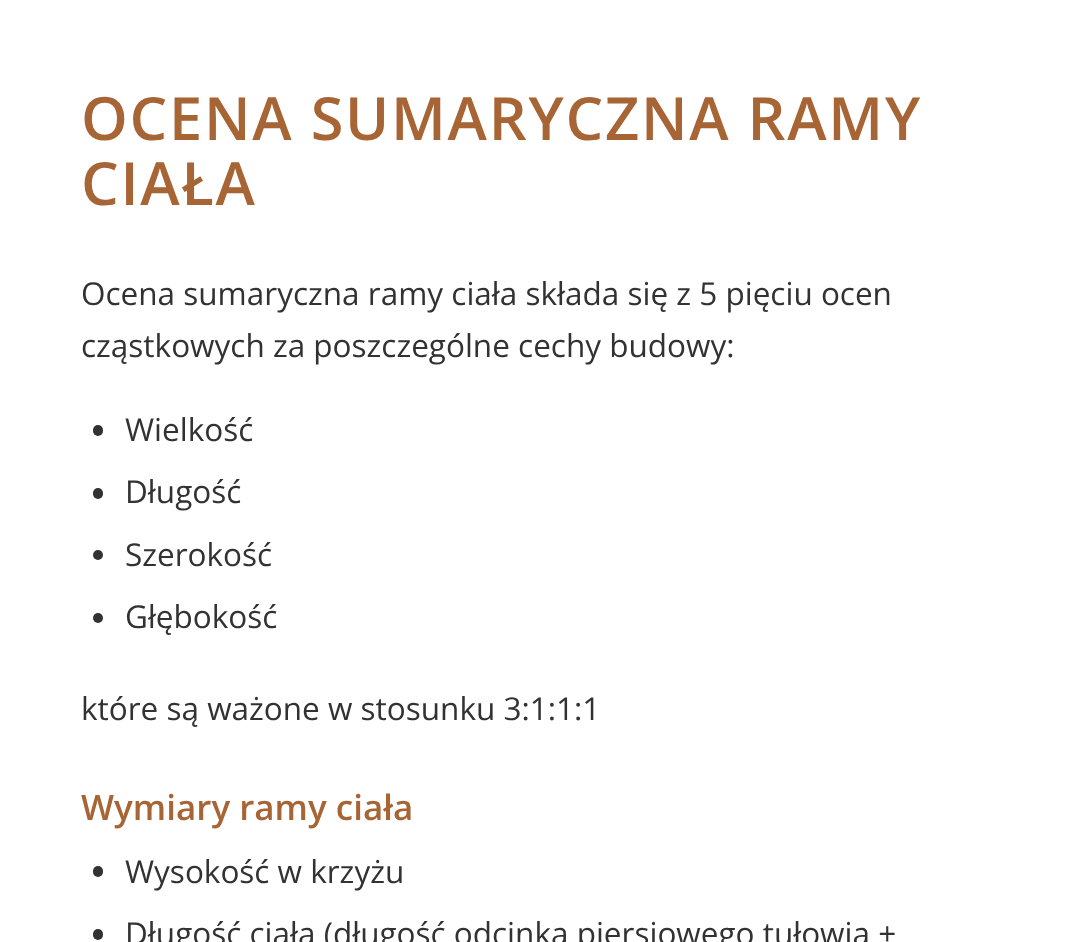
(async () => {
    const canvas = document.querySelector("canvas");
    canvas.width = 1085;
    canvas.height = 942;
    const context = canvas.getContext("2d");
    context.miterLimit = 4;
    context.fontKerning = "normal";
    function write(s, x, y, font, color) {
        context.font = font;
        context.fillStyle = color;
        context.fillText(s, x, y);
    }
    function block(x, y, w, h, color) {
        context.fillStyle = color;
        context.fillRect(x, y, w, h);
    }
    function card(x, y, w, h, r, color) {
        context.fillStyle = color;
        context.beginPath();
        context.roundRect(x, y, w, h, r);
        context.fill();
    }

    block(0, 0, 1085, 942, "rgb(255, 255, 255)");
    context.letterSpacing = "1.75px";
    write("OCENA SUMARYCZNA RAMY", 81, 140, "600 59.5px Open Sans", "rgb(167, 100, 52)");
    write("CIAŁA", 81, 205, "600 59.5px Open Sans", "rgb(167, 100, 52)");
    context.letterSpacing = "0px";
    write("Ocena sumaryczna ramy ciała składa się z 5 pięciu ocen", 81, 305, "31.5px Open Sans", "rgb(50, 50, 50)");
    write("cząstkowych za poszczególne cechy budowy:", 81, 357, "31.5px Open Sans", "rgb(50, 50, 50)");
    card(93, 425, 10, 11, 5, "rgb(50, 50, 50)");
    write("Wielkość", 125, 441, "31.5px Open Sans", "rgb(50, 50, 50)");
    card(93, 488, 10, 11, 5, "rgb(50, 50, 50)");
    write("Długość", 125, 503, "31.5px Open Sans", "rgb(50, 50, 50)");
    context.beginPath();
    context.arc(98, 555, 5, 0, Math.PI * 2);
    context.fill();
    write("Szerokość", 125, 566, "31.5px Open Sans", "rgb(50, 50, 50)");
    context.beginPath();
    context.arc(98, 618, 5, 0, Math.PI * 2);
    context.fill();
    write("Głębokość", 125, 628, "31.5px Open Sans", "rgb(50, 50, 50)");
    write("które są ważone w stosunku 3:1:1:1", 81, 720, "31.5px Open Sans", "rgb(50, 50, 50)");
    write("Wymiary ramy ciała", 81, 820, "600 35px Open Sans", "rgb(167, 100, 52)");
    card(93, 866, 10, 11, 5, "rgb(50, 50, 50)");
    write("Wysokość w krzyżu", 125, 883, "31.5px Open Sans", "rgb(50, 50, 50)");
    card(93, 929, 10, 11, 5, "rgb(50, 50, 50)");
    write("Długość ciała (długość odcinka piersiowego tułowia +", 125, 945, "31.5px Open Sans", "rgb(50, 50, 50)");
})();
